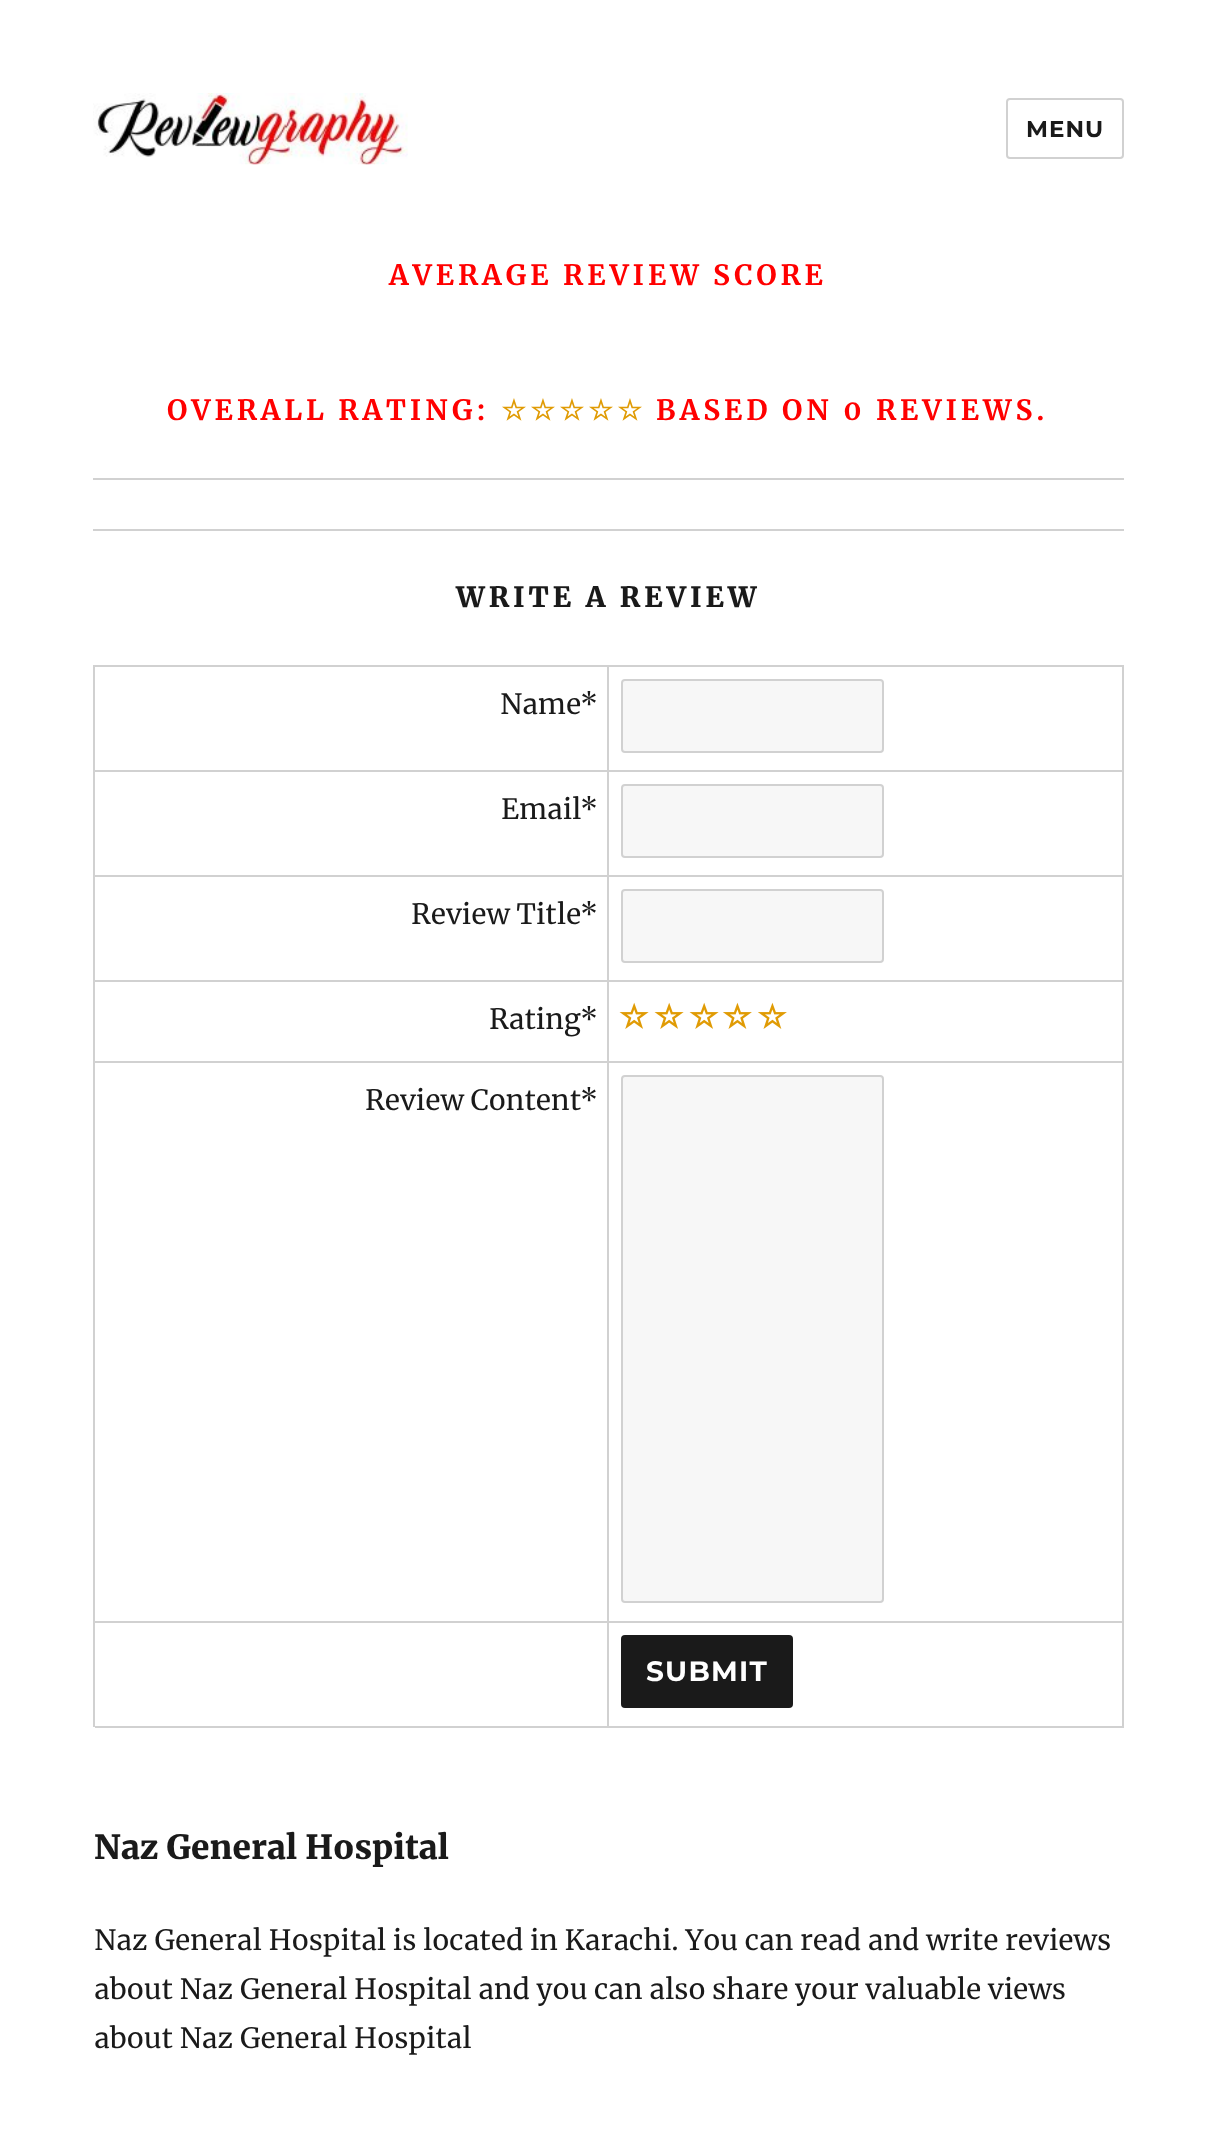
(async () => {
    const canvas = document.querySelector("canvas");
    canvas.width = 1216;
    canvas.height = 2135;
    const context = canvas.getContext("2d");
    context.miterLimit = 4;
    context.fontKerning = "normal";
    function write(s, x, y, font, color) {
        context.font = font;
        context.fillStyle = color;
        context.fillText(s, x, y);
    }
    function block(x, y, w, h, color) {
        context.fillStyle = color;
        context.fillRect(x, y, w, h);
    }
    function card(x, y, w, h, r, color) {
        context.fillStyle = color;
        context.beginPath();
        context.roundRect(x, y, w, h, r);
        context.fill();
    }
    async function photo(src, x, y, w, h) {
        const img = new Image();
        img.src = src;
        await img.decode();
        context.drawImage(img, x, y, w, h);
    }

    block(0, 0, 1216, 2135, "rgb(255, 255, 255)");
    await photo("media/1.png", 93, 93, 315, 72);
    context.beginPath();
    context.roundRect(1007, 99, 116, 59, 3);
    context.strokeStyle = "rgb(209, 209, 209)";
    context.lineWidth = 2;
    context.stroke();
    context.letterSpacing = "1px";
    write("MENU", 1026, 137, "100 23px Montserrat", "rgb(26, 26, 26)");
    context.letterSpacing = "3.9px";
    write("AVERAGE REVIEW SCORE", 389, 285, "bold 28px Merriweather", "rgb(255, 0, 0)");
    write("OVERALL RATING:", 167, 420, "bold 28px Merriweather", "rgb(255, 0, 0)");
    write("☆☆☆☆☆", 501, 420, "bold 28px DejaVu Sans", "rgb(224, 155, 4)");
    write("BASED ON 0 REVIEWS.", 656, 420, "bold 28px Merriweather", "rgb(255, 0, 0)");
    block(93, 478, 1031, 2, "rgb(209, 209, 209)");
    block(93, 529, 1031, 2, "rgb(209, 209, 209)");
    write("WRITE A REVIEW", 456, 607, "900 28px Merriweather", "rgb(26, 26, 26)");
    block(93, 665, 1031, 2, "rgb(209, 209, 209)");
    block(93, 665, 2, 1062, "rgb(209, 209, 209)");
    block(607, 667, 2, 395, "rgb(209, 209, 209)");
    block(95, 770, 514, 2, "rgb(209, 209, 209)");
    context.letterSpacing = "0px";
    write("Name", 500, 714, "28px Merriweather", "rgb(26, 26, 26)");
    write("*", 580, 714, "28px Merriweather", "rgb(26, 26, 26)");
    block(1122, 667, 2, 395, "rgb(209, 209, 209)");
    block(609, 770, 515, 2, "rgb(209, 209, 209)");
    context.fillStyle = "rgb(247, 247, 247)";
    context.beginPath();
    context.roundRect(622, 680, 261, 72, 3);
    context.fill();
    context.stroke();
    block(95, 875, 514, 2, "rgb(209, 209, 209)");
    write("Email", 501, 819, "28px Merriweather", "rgb(26, 26, 26)");
    write("*", 580, 819, "28px Merriweather", "rgb(26, 26, 26)");
    block(609, 875, 515, 2, "rgb(209, 209, 209)");
    context.fillStyle = "rgb(247, 247, 247)";
    context.beginPath();
    context.roundRect(622, 785, 261, 72, 3);
    context.fill();
    context.stroke();
    block(95, 980, 514, 2, "rgb(209, 209, 209)");
    write("Review Title", 411, 924, "28px Merriweather", "rgb(26, 26, 26)");
    write("*", 580, 924, "28px Merriweather", "rgb(26, 26, 26)");
    block(609, 980, 515, 2, "rgb(209, 209, 209)");
    context.fillStyle = "rgb(247, 247, 247)";
    context.beginPath();
    context.roundRect(622, 890, 261, 72, 3);
    context.fill();
    context.stroke();
    block(95, 1061, 514, 2, "rgb(209, 209, 209)");
    write("Rating", 489, 1029, "28px Merriweather", "rgb(26, 26, 26)");
    write("*", 580, 1029, "28px Merriweather", "rgb(26, 26, 26)");
    block(609, 1061, 515, 2, "rgb(209, 209, 209)");
    await photo("media/2.png", 619, 1002, 30, 27);
    await photo("media/2.png", 654, 1002, 30, 27);
    await photo("media/2.png", 689, 1002, 30, 27);
    await photo("media/3.png", 723, 1002, 29, 27);
    await photo("media/3.png", 758, 1002, 29, 27);
    block(607, 1062, 2, 560, "rgb(209, 209, 209)");
    block(607, 1622, 2, 105, "rgb(209, 209, 209)");
    block(95, 1621, 514, 2, "rgb(209, 209, 209)");
    write("Review Content", 365, 1110, "28px Merriweather", "rgb(26, 26, 26)");
    write("*", 580, 1110, "28px Merriweather", "rgb(26, 26, 26)");
    block(1122, 1062, 2, 560, "rgb(209, 209, 209)");
    block(609, 1621, 515, 2, "rgb(209, 209, 209)");
    context.fillStyle = "rgb(247, 247, 247)";
    context.beginPath();
    context.roundRect(622, 1076, 261, 526, 3);
    context.fill();
    context.stroke();
    block(95, 1726, 514, 2, "rgb(209, 209, 209)");
    block(1122, 1622, 2, 105, "rgb(209, 209, 209)");
    block(609, 1726, 515, 2, "rgb(209, 209, 209)");
    card(621, 1635, 172, 73, 4, "rgb(26, 26, 26)");
    context.letterSpacing = "1.25px";
    write("SUBMIT", 646, 1681, "100 28px Montserrat", "rgb(255, 255, 255)");
    context.letterSpacing = "0px";
    write("Naz General Hospital", 94, 1859, "900 33.25px Merriweather", "rgb(26, 26, 26)");
    write("Naz General Hospital is located in Karachi. You can read and write reviews", 94, 1950, "28px Merriweather", "rgb(26, 26, 26)");
    write("about Naz General Hospital and you can also share your valuable views", 94, 1999, "28px Merriweather", "rgb(26, 26, 26)");
    write("about Naz General Hospital", 94, 2048, "28px Merriweather", "rgb(26, 26, 26)");
})();
